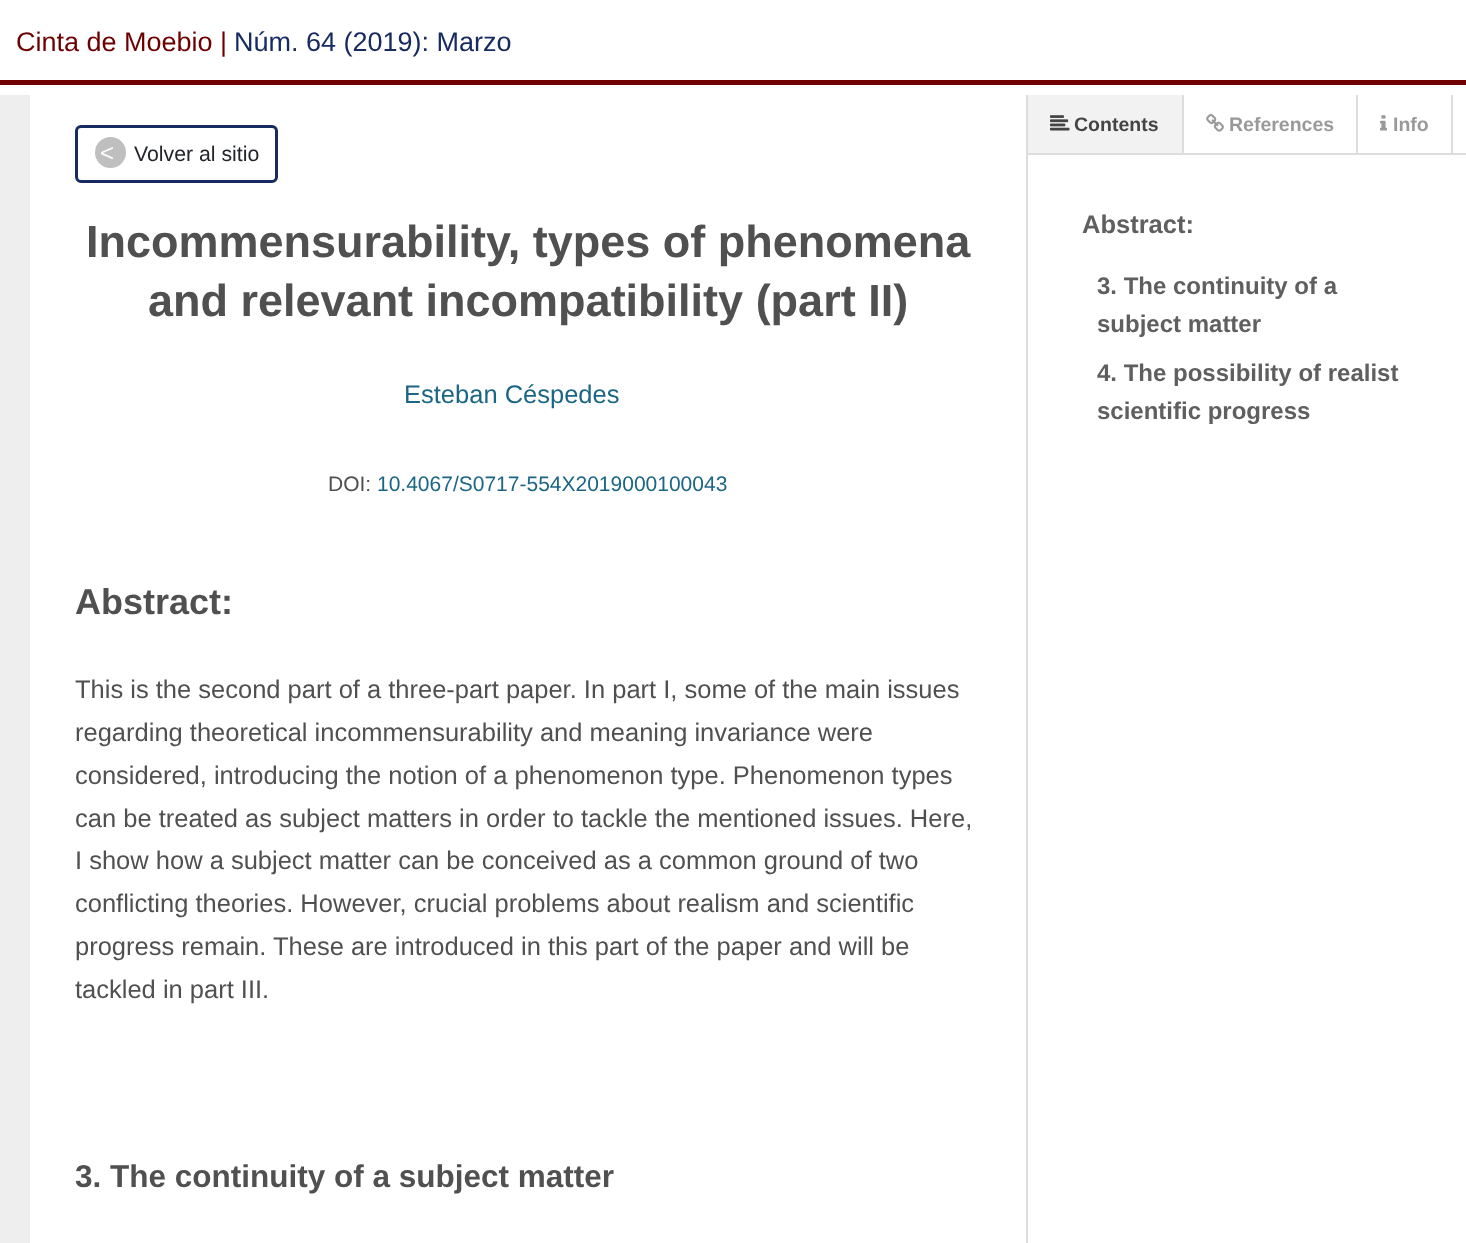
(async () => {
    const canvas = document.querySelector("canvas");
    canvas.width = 1466;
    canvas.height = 1243;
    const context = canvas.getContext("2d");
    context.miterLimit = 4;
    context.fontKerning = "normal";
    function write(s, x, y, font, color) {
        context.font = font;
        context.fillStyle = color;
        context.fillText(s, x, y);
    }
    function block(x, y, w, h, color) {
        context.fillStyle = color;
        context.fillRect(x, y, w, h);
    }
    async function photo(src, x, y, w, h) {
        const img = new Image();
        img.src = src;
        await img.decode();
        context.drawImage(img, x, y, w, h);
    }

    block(0, 0, 1466, 1243, "rgb(255, 255, 255)");
    block(0, 80, 1466, 5, "rgb(109, 0, 0)");
    write("Cinta de Moebio |", 16, 51, "27px Liberation Sans", "rgb(109, 0, 0)");
    write("Núm. 64 (2019): Marzo", 234, 51, "27px Liberation Sans", "rgb(23, 43, 96)");
    block(1026, 95, 2, 1148, "rgb(221, 221, 221)");
    block(0, 95, 30, 1148, "rgb(238, 238, 238)");
    context.beginPath();
    context.roundRect(76.5, 126.5, 200, 55, 4.5);
    context.strokeStyle = "rgb(23, 43, 96)";
    context.lineWidth = 3;
    context.stroke();
    context.fillStyle = "rgb(191, 191, 191)";
    context.beginPath();
    context.arc(110.5, 152.5, 15.5, 0, Math.PI * 2);
    context.fill();
    write("<", 100, 161, "24px Liberation Sans", "rgb(255, 255, 255)");
    write("Volver al sitio", 134, 161, "21.25px Liberation Sans", "rgb(33, 37, 41)");
    write("Incommensurability, types of phenomena", 86, 257, "bold 45px Liberation Sans", "rgb(80, 80, 80)");
    write("and relevant incompatibility (part II)", 148, 316, "bold 45px Liberation Sans", "rgb(80, 80, 80)");
    write("Esteban Céspedes", 404, 403, "25.5px Liberation Sans", "rgb(27, 102, 133)");
    write("DOI:", 328, 491, "21px Liberation Sans", "rgb(80, 80, 80)");
    write("10.4067/S0717-554X2019000100043", 377, 491, "21px Liberation Sans", "rgb(27, 102, 133)");
    write("Abstract:", 75, 614, "bold 36px Liberation Sans", "rgb(80, 80, 80)");
    write("This is the second part of a three-part paper. In part I, some of the main issues", 75, 698, "25.5px Liberation Sans", "rgb(80, 80, 80)");
    write("regarding theoretical incommensurability and meaning invariance were", 75, 741, "25.5px Liberation Sans", "rgb(80, 80, 80)");
    write("considered, introducing the notion of a phenomenon type. Phenomenon types", 75, 784, "25.5px Liberation Sans", "rgb(80, 80, 80)");
    write("can be treated as subject matters in order to tackle the mentioned issues. Here,", 75, 827, "25.5px Liberation Sans", "rgb(80, 80, 80)");
    write("I show how a subject matter can be conceived as a common ground of two", 75, 869, "25.5px Liberation Sans", "rgb(80, 80, 80)");
    write("conflicting theories. However, crucial problems about realism and scientific", 75, 912, "25.5px Liberation Sans", "rgb(80, 80, 80)");
    write("progress remain. These are introduced in this part of the paper and will be", 75, 955, "25.5px Liberation Sans", "rgb(80, 80, 80)");
    write("tackled in part III.", 75, 998, "25.5px Liberation Sans", "rgb(80, 80, 80)");
    write("3. The continuity of a subject matter", 75, 1187, "bold 31.5px Liberation Sans", "rgb(80, 80, 80)");
    block(1028, 153, 438, 2, "rgb(221, 221, 221)");
    block(1028, 95, 154, 58, "rgb(242, 242, 242)");
    context.save();
    context.beginPath();
    context.rect(1028, 95, 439, 58);
    context.clip();
    context.fillStyle = "rgb(221, 221, 221)";
    context.beginPath();
    context.moveTo(1184, 94);
    context.lineTo(1184, 159);
    context.lineTo(1182, 154);
    context.lineTo(1182, 94);
    context.closePath();
    context.fill();
    context.restore();
    await photo("media/1.png", 1050, 115, 20, 16);
    write("Contents", 1074, 131, "bold 19.5px Liberation Sans", "rgb(68, 68, 68)");
    block(1356, 95, 2, 58, "rgb(221, 221, 221)");
    await photo("media/2.png", 1206, 114, 18, 18);
    write("References", 1229, 131, "bold 19.5px Liberation Sans", "rgb(153, 153, 153)");
    block(1451, 95, 2, 58, "rgb(221, 221, 221)");
    await photo("media/3.png", 1380, 115, 7, 16);
    write("Info", 1393, 131, "bold 19.5px Liberation Sans", "rgb(153, 153, 153)");
    write("Abstract:", 1082, 233, "bold 25.5px Liberation Sans", "rgb(96, 95, 95)");
    write("3. The continuity of a", 1097, 294, "bold 24px Liberation Sans", "rgb(96, 95, 95)");
    write("subject matter", 1097, 332, "bold 24px Liberation Sans", "rgb(96, 95, 95)");
    write("4. The possibility of realist", 1097, 381, "bold 24px Liberation Sans", "rgb(96, 95, 95)");
    write("scientific progress", 1097, 419, "bold 24px Liberation Sans", "rgb(96, 95, 95)");
})();
